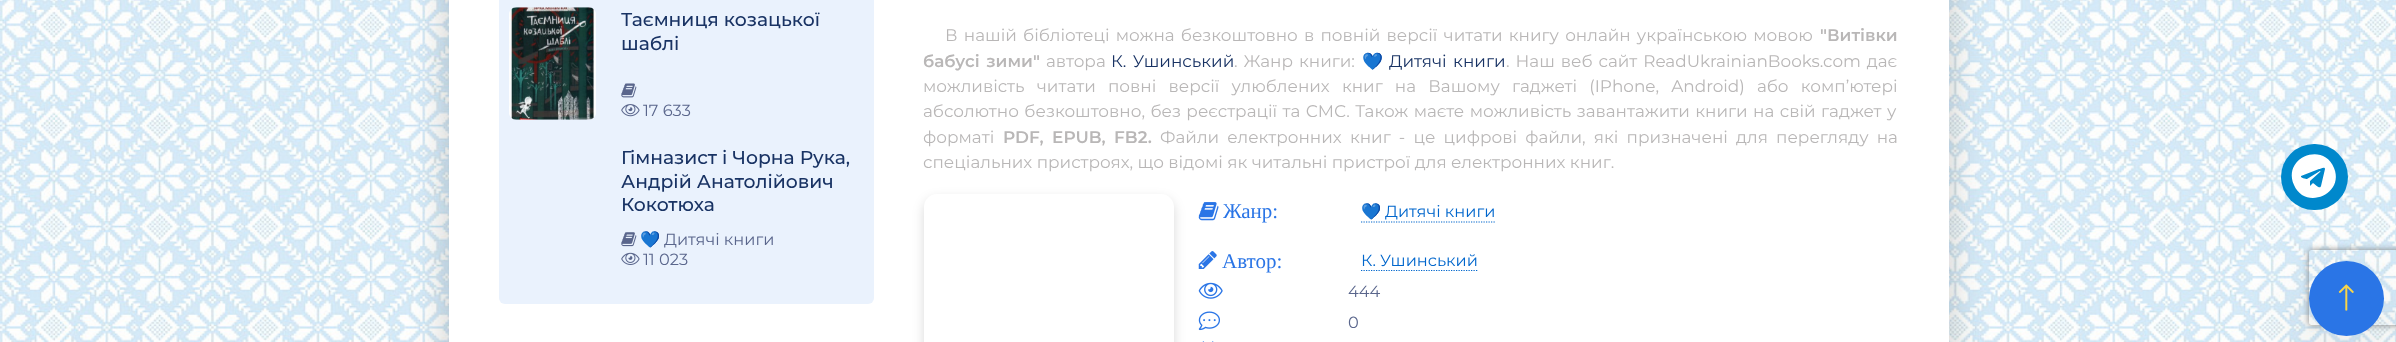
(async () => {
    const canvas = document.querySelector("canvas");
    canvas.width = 2396;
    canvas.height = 342;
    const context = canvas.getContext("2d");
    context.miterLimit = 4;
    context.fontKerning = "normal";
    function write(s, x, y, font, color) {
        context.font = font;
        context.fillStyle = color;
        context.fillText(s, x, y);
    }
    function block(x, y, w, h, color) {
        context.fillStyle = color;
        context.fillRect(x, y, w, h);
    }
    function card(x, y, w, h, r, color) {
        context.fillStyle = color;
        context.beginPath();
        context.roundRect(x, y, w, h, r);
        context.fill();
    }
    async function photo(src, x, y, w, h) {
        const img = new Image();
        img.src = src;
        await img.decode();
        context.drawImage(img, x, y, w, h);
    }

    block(0, 0, 2396, 342, "rgb(255, 255, 255)");
    await photo("media/1.png", 0, 0, 2396, 342);
    context.fillStyle = "rgba(0, 0, 0, 0.2)";
    context.filter = "blur(19px)";
    context.beginPath();
    context.roundRect(449, -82, 1500, 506, 25);
    context.fill();
    context.filter = "none";
    block(449, 0, 1500, 342, "rgb(255, 255, 255)");
    card(499, -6, 375, 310, 6, "rgb(234, 242, 253)");
    await photo("media/2.png", 509, 7, 87, 113);
    write("Таємниця козацької", 621, 26, "500 18.75px Montserrat", "rgb(25, 51, 100)");
    write("шаблі", 621, 50, "500 18.75px Montserrat", "rgb(25, 51, 100)");
    await photo("media/3.png", 621, 83, 16, 15);
    await photo("media/4.png", 621, 104, 19, 13);
    write("17 633", 643, 116, "16.25px Montserrat", "rgb(90, 102, 140)");
    write("Гімназист і Чорна Рука,", 621, 164, "500 18.75px Montserrat", "rgb(25, 51, 100)");
    write("Андрій Анатолійович", 621, 188, "500 18.75px Montserrat", "rgb(25, 51, 100)");
    write("Кокотюха", 621, 211, "500 18.75px Montserrat", "rgb(25, 51, 100)");
    await photo("media/5.png", 621, 232, 16, 15);
    write("💙", 640, 245, "16.25px Noto Color Emoji", "rgb(90, 102, 140)");
    write("Дитячі книги", 664, 245, "16.25px Montserrat", "rgb(90, 102, 140)");
    await photo("media/6.png", 621, 252, 19, 13);
    write("11 023", 643, 265, "16.25px Montserrat", "rgb(90, 102, 140)");
    context.wordSpacing = "1.75px";
    write("В нашій бібліотеці можна безкоштовно в повній версії читати книгу онлайн українською мовою", 945, 41, "16.88px Montserrat", "rgb(185, 183, 183)");
    context.wordSpacing = "0px";
    write("\"Витівки", 1820, 41, "600 16.88px Montserrat", "rgb(185, 183, 183)");
    context.wordSpacing = "2px";
    write("бабусі зими\"", 923, 67, "600 16.88px Montserrat", "rgb(185, 183, 183)");
    context.wordSpacing = "0px";
    write("автора", 1046, 67, "16.88px Montserrat", "rgb(185, 183, 183)");
    context.wordSpacing = "2px";
    write("К. Ушинський", 1111, 67, "16.88px Montserrat", "rgb(25, 51, 100)");
    context.wordSpacing = "1.5px";
    write(". Жанр книги:", 1234, 67, "16.88px Montserrat", "rgb(185, 183, 183)");
    context.wordSpacing = "0px";
    write("💙", 1362, 67, "16.88px Noto Color Emoji", "rgb(25, 51, 100)");
    context.wordSpacing = "2px";
    write("Дитячі книги", 1389, 67, "16.88px Montserrat", "rgb(25, 51, 100)");
    context.wordSpacing = "1.5px";
    write(". Наш веб сайт ReadUkrainianBooks.com дає", 1506, 67, "16.88px Montserrat", "rgb(185, 183, 183)");
    context.wordSpacing = "7.75px";
    write("можливість читати повні версії улюблених книг на Вашому гаджеті (IPhone, Android) або комп’ютері", 923, 92, "16.88px Montserrat", "rgb(185, 183, 183)");
    context.wordSpacing = "1px";
    write("абсолютно безкоштовно, без реєстрації та СМС. Також маєте можливість завантажити книги на свій гаджет у", 923, 117, "16.88px Montserrat", "rgb(185, 183, 183)");
    context.wordSpacing = "0px";
    write("форматі", 923, 143, "16.88px Montserrat", "rgb(185, 183, 183)");
    context.wordSpacing = "3.75px";
    write("PDF, EPUB, FB2.", 1003, 143, "600 16.88px Montserrat", "rgb(185, 183, 183)");
    write("Файли електронних книг - це цифрові файли, які призначені для перегляду на", 1160, 143, "16.88px Montserrat", "rgb(185, 183, 183)");
    context.wordSpacing = "0px";
    write("спеціальних пристроях, що відомі як читальні пристрої для електронних книг.", 923, 168, "16.88px Montserrat", "rgb(185, 183, 183)");
    context.save();
    context.beginPath();
    context.moveTo(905, 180);
    context.lineTo(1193, 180);
    context.lineTo(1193, 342);
    context.lineTo(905, 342);
    context.closePath();
    context.moveTo(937, 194);
    context.lineTo(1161, 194);
    context.bezierCurveTo(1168, 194, 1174, 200, 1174, 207);
    context.lineTo(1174, 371);
    context.bezierCurveTo(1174, 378, 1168, 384, 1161, 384);
    context.lineTo(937, 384);
    context.bezierCurveTo(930, 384, 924, 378, 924, 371);
    context.lineTo(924, 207);
    context.bezierCurveTo(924, 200, 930, 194, 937, 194);
    context.closePath();
    context.clip("evenodd");
    context.fillStyle = "rgba(0, 0, 0, 0.15)";
    context.filter = "blur(6px)";
    context.beginPath();
    context.roundRect(924, 199, 250, 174, 13);
    context.fill();
    context.filter = "none";
    context.restore();
    await photo("media/7.png", 1198, 202, 21, 19);
    write("Жанр:", 1223, 218, "21px Liberation Serif", "rgb(42, 117, 230)");
    write("💙", 1361, 217, "16.25px Noto Color Emoji", "rgb(0, 102, 204)");
    write("Дитячі книги", 1385, 217, "16.25px Montserrat", "rgb(0, 102, 204)");
    context.beginPath();
    context.moveTo(1361, 222);
    context.lineTo(1495, 222);
    context.strokeStyle = "rgb(0, 102, 204)";
    context.lineWidth = 1.2;
    context.setLineDash([1.25, 1.25]);
    context.stroke();
    await photo("media/8.png", 1198, 251, 19, 18);
    write("Автор:", 1222, 268, "21px Liberation Serif", "rgb(42, 117, 230)");
    write("К. Ушинський", 1361, 266, "16.25px Montserrat", "rgb(0, 102, 204)");
    context.beginPath();
    context.moveTo(1361, 270.5);
    context.lineTo(1477.5, 270.5);
    context.stroke();
    await photo("media/9.png", 1198, 282, 25, 17);
    write("444", 1348, 297, "16.25px Montserrat", "rgb(90, 102, 140)");
    await photo("media/10.png", 1198, 311, 22, 20);
    write("0", 1348, 328, "16.25px Montserrat", "rgb(90, 102, 140)");
    await photo("media/11.png", 1202, 341, 12, 1);
    context.fillStyle = "rgba(0, 0, 0, 0.1)";
    context.filter = "blur(35.5px)";
    context.beginPath();
    context.roundRect(2309, 290, 75, 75, 37.5);
    context.fill();
    context.filter = "none";
    card(2281, 144, 67, 66, 33, "rgb(0, 136, 204)");
    context.fillStyle = "rgb(255, 255, 255)";
    context.beginPath();
    context.moveTo(2321, 186);
    context.lineTo(2325, 169);
    context.bezierCurveTo(2325, 166, 2320, 169, 2319, 169);
    context.lineTo(2301, 176);
    context.bezierCurveTo(2300, 178, 2306, 179, 2307, 179);
    context.lineTo(2320, 171);
    context.bezierCurveTo(2320, 171, 2321, 171, 2320, 172);
    context.lineTo(2310, 181);
    context.lineTo(2310, 186);
    context.lineTo(2313, 183);
    context.bezierCurveTo(2315, 184, 2320, 190, 2321, 186);
    context.closePath();
    context.moveTo(2334, 168);
    context.bezierCurveTo(2345, 194, 2305, 211, 2294, 185);
    context.bezierCurveTo(2282, 158, 2323, 141, 2334, 168);
    context.closePath();
    context.fill();
    context.save();
    context.beginPath();
    context.moveTo(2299, 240);
    context.lineTo(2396, 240);
    context.lineTo(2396, 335);
    context.lineTo(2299, 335);
    context.closePath();
    context.moveTo(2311.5, 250);
    context.lineTo(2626.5, 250);
    context.bezierCurveTo(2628, 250, 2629, 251, 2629, 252.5);
    context.lineTo(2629, 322.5);
    context.bezierCurveTo(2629, 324, 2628, 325, 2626.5, 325);
    context.lineTo(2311.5, 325);
    context.bezierCurveTo(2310, 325, 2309, 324, 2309, 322.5);
    context.lineTo(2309, 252.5);
    context.bezierCurveTo(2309, 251, 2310, 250, 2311.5, 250);
    context.closePath();
    context.clip("evenodd");
    context.fillStyle = "rgb(128, 128, 128)";
    context.filter = "blur(3px)";
    context.beginPath();
    context.roundRect(2309, 250, 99, 75, 2.5);
    context.fill();
    context.filter = "none";
    context.restore();
    context.fillStyle = "rgb(42, 117, 230)";
    context.beginPath();
    context.arc(2346.5, 298.5, 37.5, 0, Math.PI * 2);
    context.fill();
    await photo("media/12.png", 2338, 284, 16, 27);
})();
